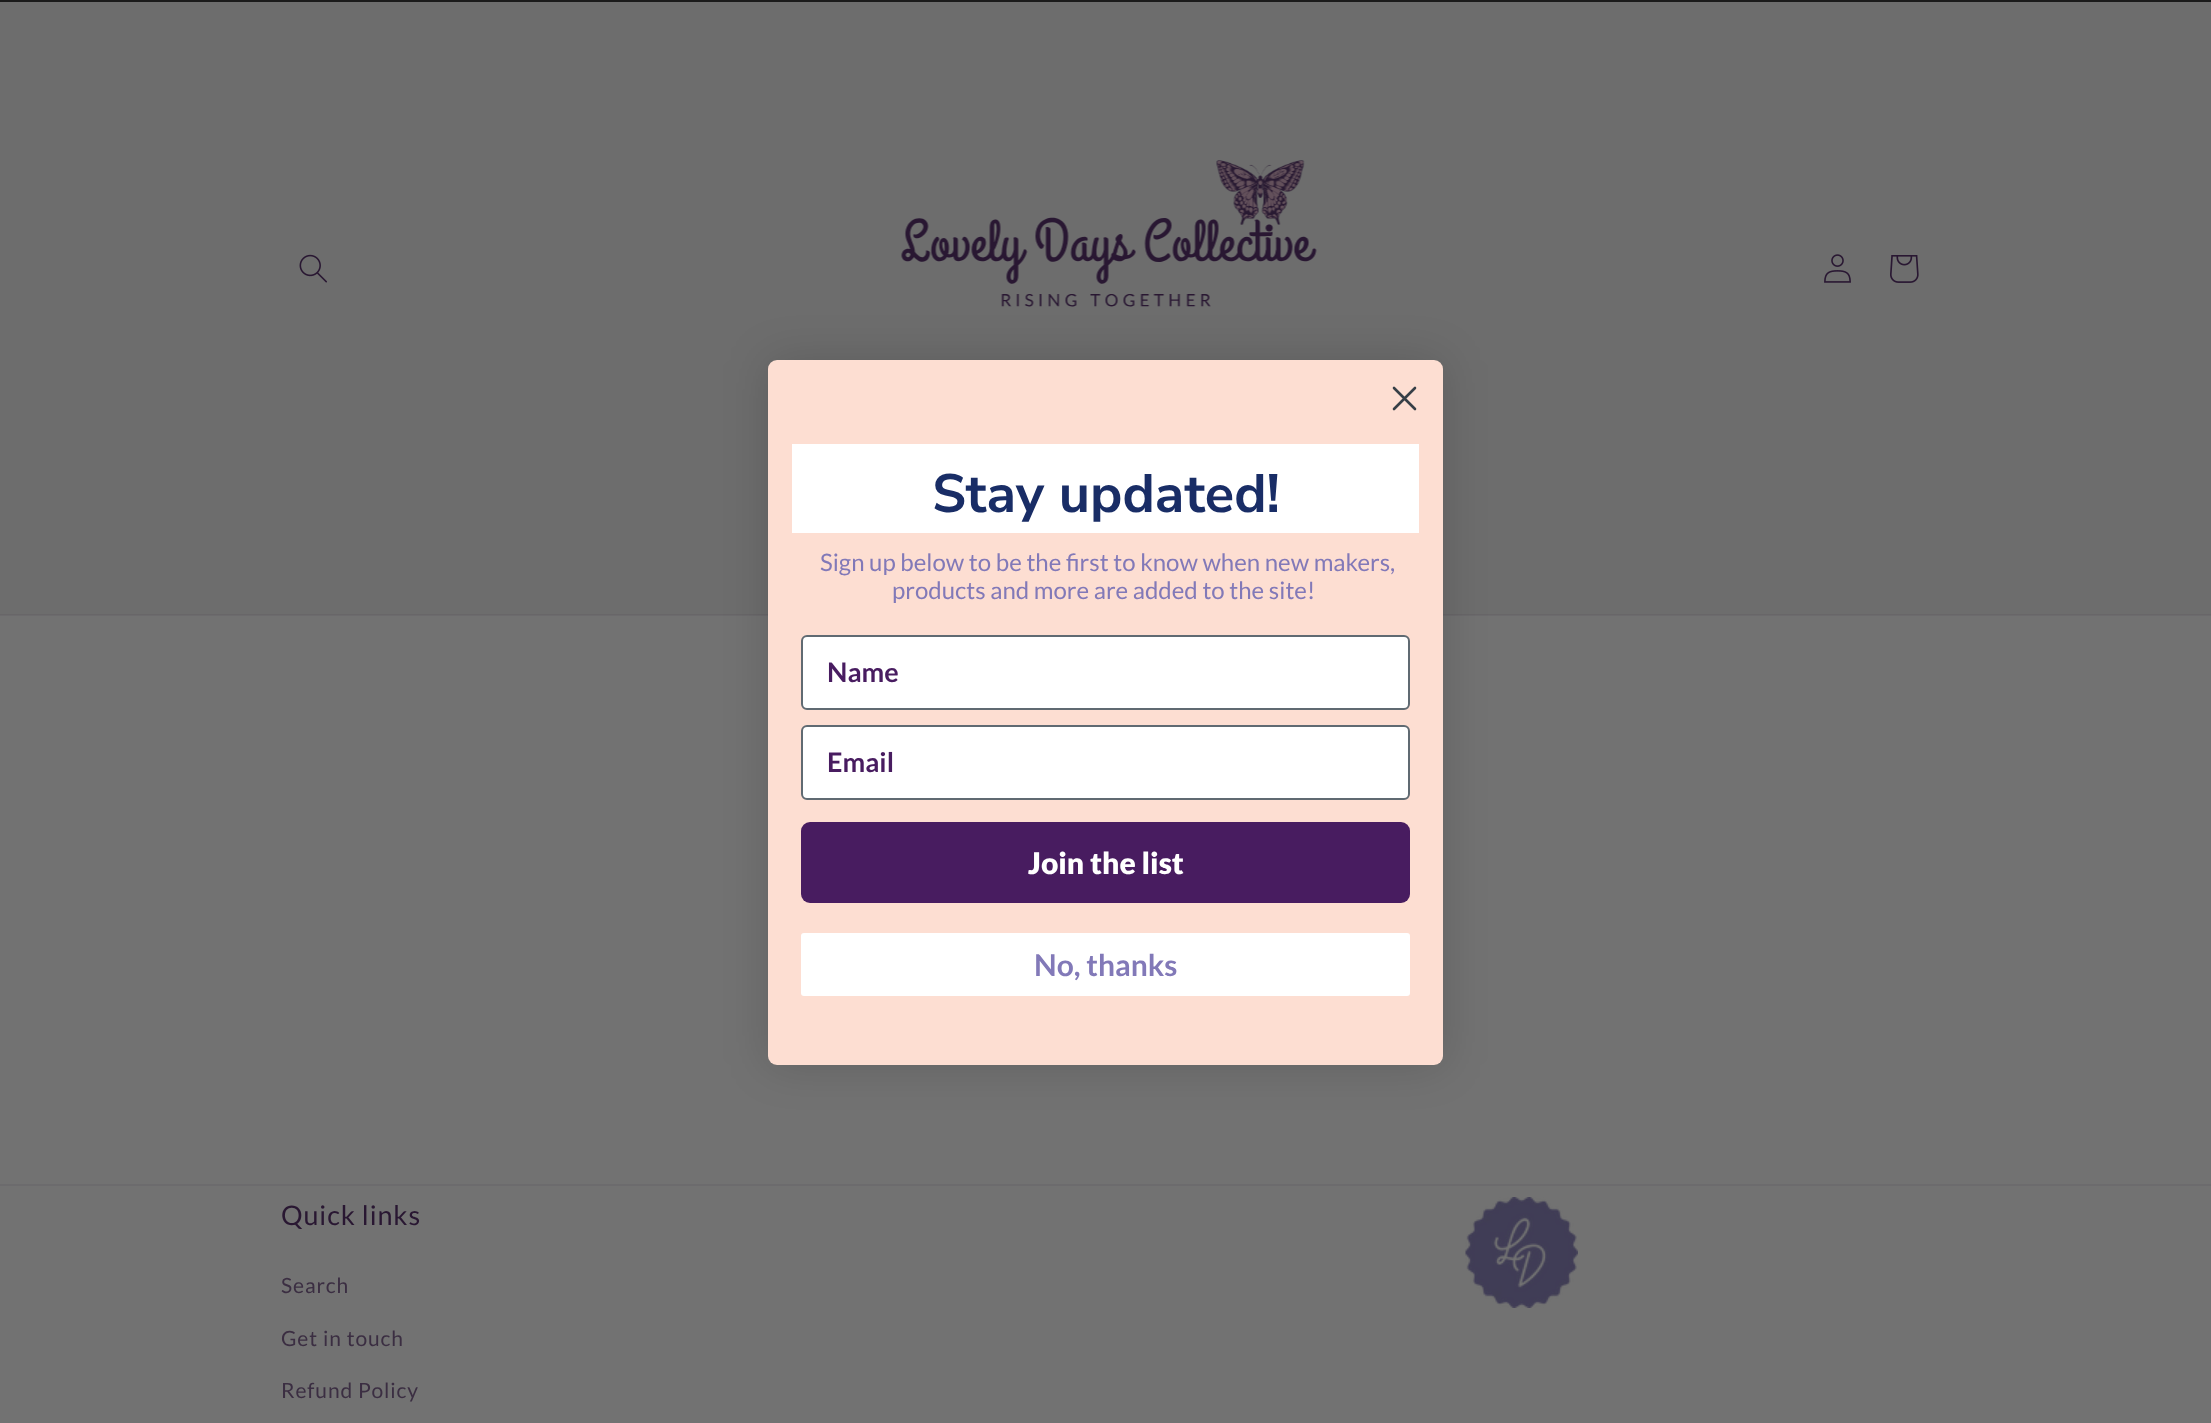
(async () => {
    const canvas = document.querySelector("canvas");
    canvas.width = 2211;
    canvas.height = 1423;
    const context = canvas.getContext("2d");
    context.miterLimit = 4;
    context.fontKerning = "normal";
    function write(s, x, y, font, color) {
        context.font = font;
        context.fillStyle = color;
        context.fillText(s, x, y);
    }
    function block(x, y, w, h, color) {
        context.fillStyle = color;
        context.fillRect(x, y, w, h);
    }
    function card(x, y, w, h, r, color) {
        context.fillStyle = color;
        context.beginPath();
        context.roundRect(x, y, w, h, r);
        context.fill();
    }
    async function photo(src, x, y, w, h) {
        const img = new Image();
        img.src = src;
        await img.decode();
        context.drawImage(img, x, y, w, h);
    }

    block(0, 0, 2211, 1423, "rgb(114, 114, 114)");
    block(0, 615, 2211, 1, "rgb(108, 107, 109)");
    block(0, 0, 2211, 2, "rgb(27, 27, 27)");
    block(0, 2, 2211, 612, "rgb(109, 109, 109)");
    block(0, 614, 2211, 1, "rgb(104, 102, 104)");
    await photo("media/1.png", 299, 254, 28, 29);
    await photo("media/2.png", 901, 160, 416, 147);
    await photo("media/3.png", 1824, 254, 27, 29);
    await photo("media/4.png", 1890, 255, 29, 28);
    context.fillStyle = "rgba(0, 0, 0, 0.15)";
    context.filter = "blur(22.5px)";
    context.beginPath();
    context.roundRect(768, 360, 675, 705, 9);
    context.fill();
    context.filter = "none";
    card(768, 360, 675, 705, 9, "rgb(253, 222, 210)");
    context.beginPath();
    context.moveTo(1394, 388);
    context.lineTo(1415, 409);
    context.moveTo(1394, 409);
    context.lineTo(1415, 388);
    context.closePath();
    context.strokeStyle = "rgb(55, 63, 71)";
    context.lineWidth = 2.6;
    context.lineCap = "round";
    context.lineJoin = "round";
    context.stroke();
    block(792, 444, 627, 89, "rgb(255, 255, 255)");
    write("Stay updated!", 932, 512, "bold 54px Nunito Sans", "rgb(25, 45, 102)");
    write("Sign up below to be the first to know when new makers,", 820, 571, "24px Lato", "rgb(130, 121, 184)");
    write("products and more are added to the site!", 892, 599, "24px Lato", "rgb(130, 121, 184)");
    context.fillStyle = "rgb(255, 255, 255)";
    context.beginPath();
    context.roundRect(802, 636, 607, 73, 5);
    context.fill();
    context.strokeStyle = "rgb(96, 106, 114)";
    context.lineWidth = 2;
    context.lineJoin = "miter";
    context.stroke();
    write("Name", 827, 682, "bold 27px Lato", "rgb(72, 28, 96)");
    context.fillStyle = "rgb(255, 255, 255)";
    context.beginPath();
    context.roundRect(802, 726, 607, 73, 5);
    context.fill();
    context.stroke();
    write("Email", 827, 772, "bold 27px Lato", "rgb(72, 28, 96)");
    card(801, 822, 609, 81, 9, "rgb(72, 28, 96)");
    write("Join the list", 1028, 874, "900 30px Lato", "rgb(255, 255, 255)");
    card(801, 933, 609, 63, 3, "rgb(255, 255, 255)");
    write("No, thanks", 1034, 976, "bold 30px Lato", "rgb(130, 121, 184)");
    block(0, 1184, 2211, 2, "rgb(108, 107, 109)");
    context.letterSpacing = "0.9px";
    write("Quick links", 281, 1225, "27px Lato", "rgb(41, 23, 50)");
    write("Search", 281, 1293, "21px Lato", "rgb(59, 46, 66)");
    write("Get in touch", 281, 1346, "21px Lato", "rgb(59, 46, 66)");
    write("Refund Policy", 281, 1398, "21px Lato", "rgb(59, 46, 66)");
    await photo("media/5.png", 1465, 1197, 113, 111);
})();
